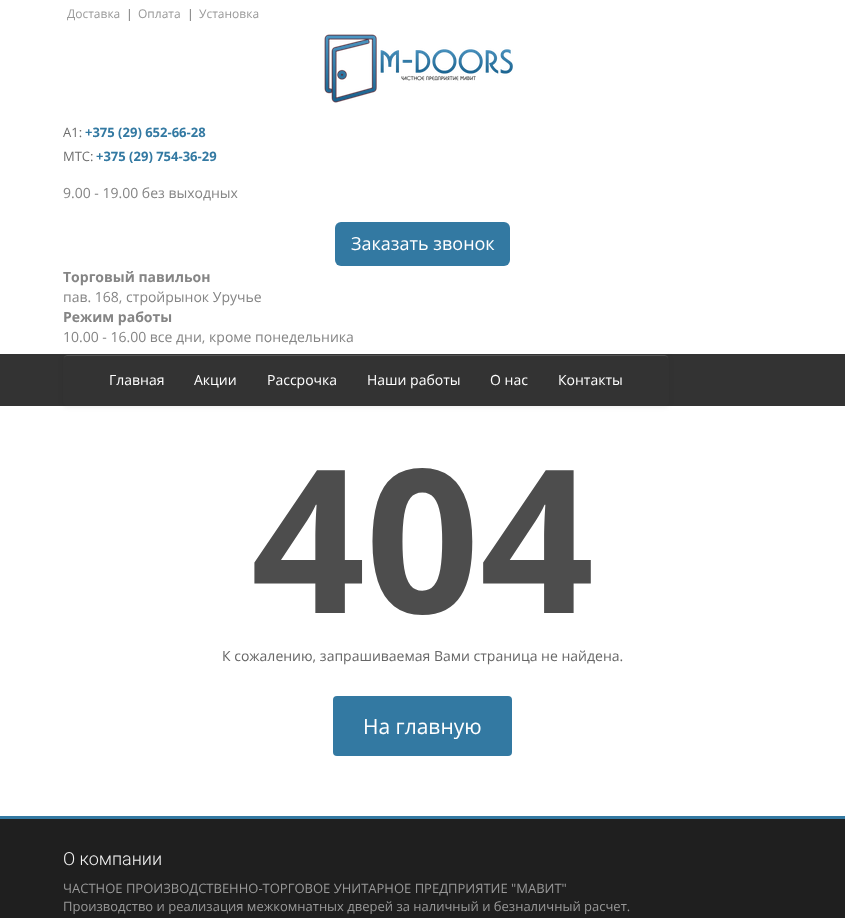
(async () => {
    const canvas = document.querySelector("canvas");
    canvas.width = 845;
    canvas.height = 918;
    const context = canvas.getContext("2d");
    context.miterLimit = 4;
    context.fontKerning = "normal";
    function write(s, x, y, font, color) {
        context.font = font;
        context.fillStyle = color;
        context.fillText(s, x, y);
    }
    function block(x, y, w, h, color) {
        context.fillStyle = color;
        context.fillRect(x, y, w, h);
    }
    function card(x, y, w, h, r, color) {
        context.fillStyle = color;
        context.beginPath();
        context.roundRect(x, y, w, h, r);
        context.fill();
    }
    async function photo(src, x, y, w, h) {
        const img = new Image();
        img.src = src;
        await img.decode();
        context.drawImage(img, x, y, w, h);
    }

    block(0, 0, 845, 918, "rgb(255, 255, 255)");
    block(0, 354, 845, 52, "rgb(51, 51, 51)");
    context.save();
    context.beginPath();
    context.moveTo(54, 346);
    context.lineTo(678, 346);
    context.lineTo(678, 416);
    context.lineTo(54, 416);
    context.closePath();
    context.moveTo(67, 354);
    context.lineTo(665, 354);
    context.bezierCurveTo(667, 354, 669, 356, 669, 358);
    context.lineTo(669, 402);
    context.bezierCurveTo(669, 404, 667, 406, 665, 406);
    context.lineTo(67, 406);
    context.bezierCurveTo(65, 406, 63, 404, 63, 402);
    context.lineTo(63, 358);
    context.bezierCurveTo(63, 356, 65, 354, 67, 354);
    context.closePath();
    context.clip("evenodd");
    context.fillStyle = "rgba(0, 0, 0, 0.07)";
    context.filter = "blur(2.5px)";
    context.beginPath();
    context.roundRect(63, 355, 606, 52, 4);
    context.fill();
    context.filter = "none";
    context.restore();
    block(64, 352, 604, 2, "rgb(255, 255, 255)");
    write("Доставка", 67, 18, "12px Open Sans", "rgb(153, 153, 153)");
    write("|", 126, 18, "12px Open Sans", "rgb(102, 102, 102)");
    write("Оплата", 138, 18, "12px Open Sans", "rgb(153, 153, 153)");
    write("|", 187, 18, "12px Open Sans", "rgb(102, 102, 102)");
    write("Установка", 199, 18, "12px Open Sans", "rgb(153, 153, 153)");
    await photo("media/1.png", 324, 34, 189, 69);
    write("А1:", 63, 137, "13px Open Sans", "rgb(110, 110, 110)");
    write("+375 (29) 652-66-28", 85, 137, "bold 13px Open Sans", "rgb(51, 121, 162)");
    write("МТС:", 63, 161, "13px Open Sans", "rgb(110, 110, 110)");
    write("+375 (29) 754-36-29", 96, 161, "bold 13px Open Sans", "rgb(51, 121, 162)");
    write("9.00 - 19.00 без выходных", 63, 198, "14px Open Sans", "rgb(133, 133, 133)");
    card(335, 222, 175, 44, 6, "rgb(51, 121, 162)");
    write("Заказать звонок", 351, 250, "18px Open Sans", "rgb(255, 255, 255)");
    write("Торговый павильон", 63, 282, "bold 14px Open Sans", "rgb(133, 133, 133)");
    write("пав. 168, стройрынок Уручье", 63, 302, "14px Open Sans", "rgb(133, 133, 133)");
    write("Режим работы", 63, 322, "bold 14px Open Sans", "rgb(133, 133, 133)");
    write("10.00 - 16.00 все дни, кроме понедельника", 63, 342, "14px Open Sans", "rgb(133, 133, 133)");
    context.fillStyle = "rgb(82, 82, 82)";
    context.beginPath();
    context.moveTo(67, 356);
    context.lineTo(665, 356);
    context.bezierCurveTo(667, 356, 668, 357, 668, 359);
    context.lineTo(668, 358);
    context.bezierCurveTo(668, 356, 667, 355, 665, 355);
    context.lineTo(67, 355);
    context.bezierCurveTo(65, 355, 64, 356, 64, 358);
    context.lineTo(64, 359);
    context.bezierCurveTo(64, 357, 65, 356, 67, 356);
    context.closePath();
    context.fill();
    context.beginPath();
    context.roundRect(63.5, 354.5, 605, 51, 3.5);
    context.strokeStyle = "rgb(51, 51, 51)";
    context.stroke();
    write("Главная", 109, 385, "14px Open Sans", "rgb(255, 255, 255)");
    write("Акции", 194, 385, "14px Open Sans", "rgb(255, 255, 255)");
    write("Рассрочка", 267, 385, "14px Open Sans", "rgb(255, 255, 255)");
    write("Наши работы", 367, 385, "14px Open Sans", "rgb(255, 255, 255)");
    write("О нас", 490, 385, "14px Open Sans", "rgb(255, 255, 255)");
    write("Контакты", 558, 385, "14px Open Sans", "rgb(255, 255, 255)");
    write("404", 251, 613, "bold 200px Open Sans", "rgb(77, 77, 77)");
    write("К сожалению, запрашиваемая Вами страница не найдена.", 222, 661, "14px Open Sans", "rgb(102, 102, 102)");
    card(333, 696, 179, 60, 4, "rgb(51, 121, 162)");
    write("На главную", 363, 734, "21px Open Sans", "rgb(255, 255, 255)");
    block(0, 816, 845, 3, "rgb(51, 121, 162)");
    block(0, 819, 845, 99, "rgb(31, 31, 31)");
    write("О компании", 63, 865, "300 18px Roboto", "rgb(242, 242, 242)");
    write("ЧАСТНОЕ ПРОИЗВОДСТВЕННО-ТОРГОВОЕ УНИТАРНОЕ ПРЕДПРИЯТИЕ \"МАВИТ\"", 63, 893, "13px Open Sans", "rgb(153, 153, 153)");
    write("Производство и реализация межкомнатных дверей за наличный и безналичный расчет.", 63, 911, "13px Open Sans", "rgb(153, 153, 153)");
})();
